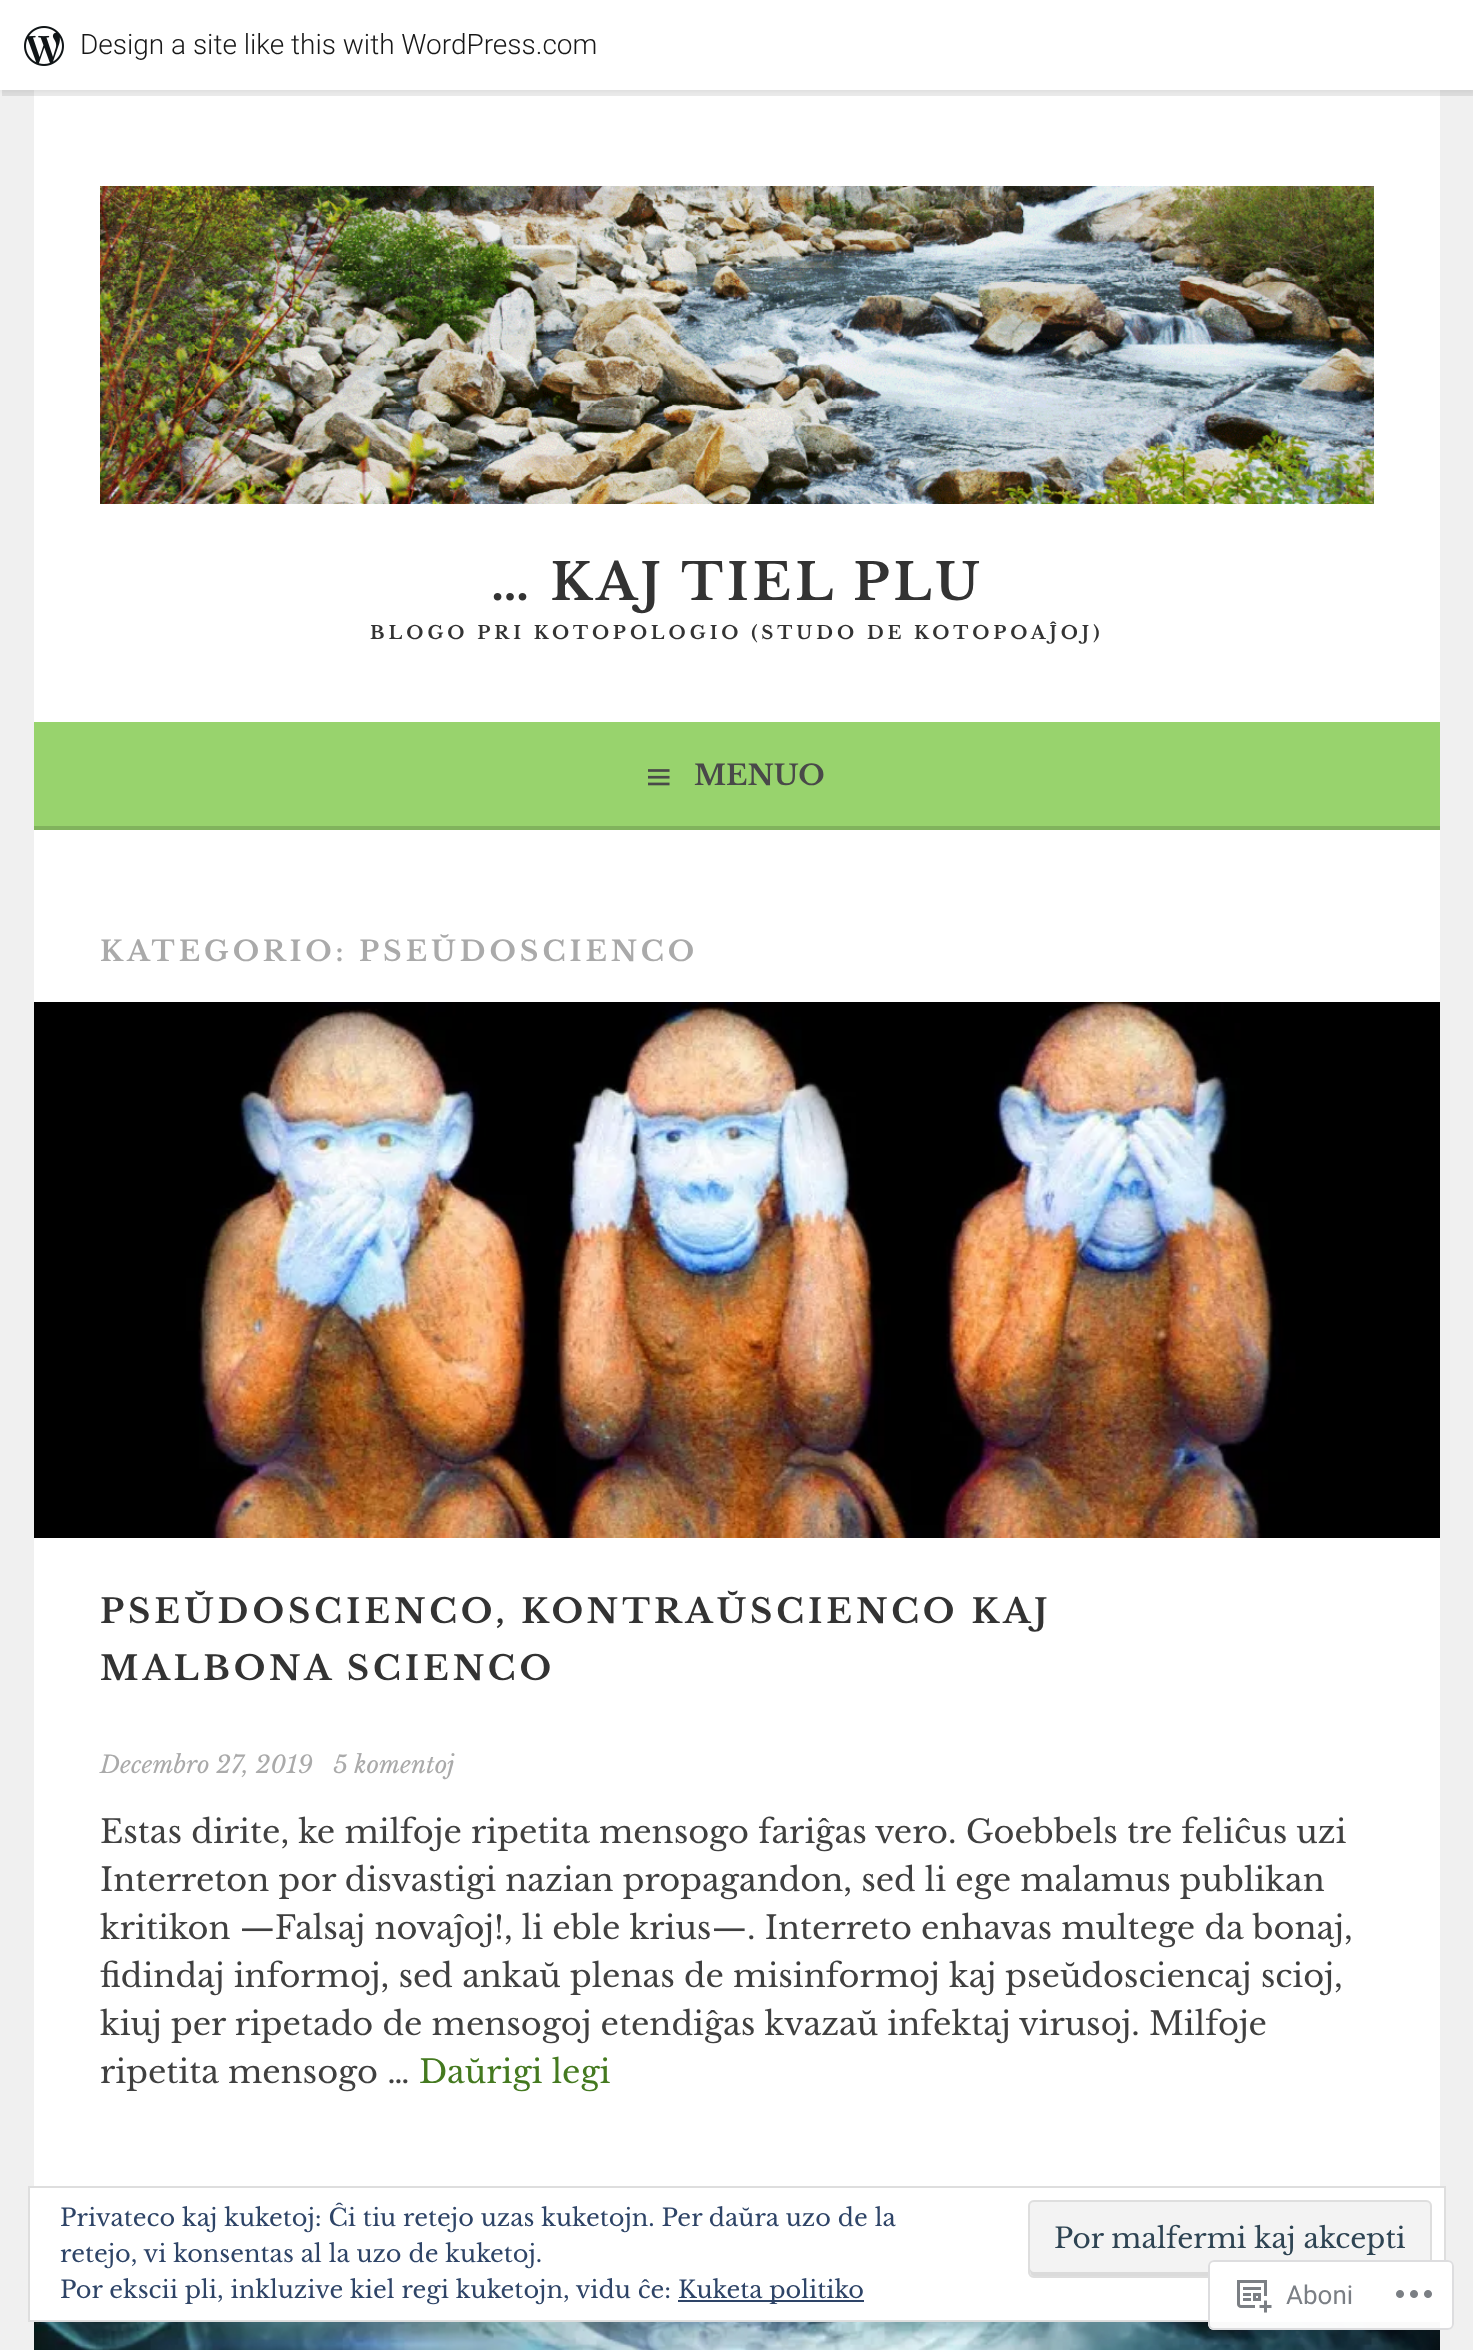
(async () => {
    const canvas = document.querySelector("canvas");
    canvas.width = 1473;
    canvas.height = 2350;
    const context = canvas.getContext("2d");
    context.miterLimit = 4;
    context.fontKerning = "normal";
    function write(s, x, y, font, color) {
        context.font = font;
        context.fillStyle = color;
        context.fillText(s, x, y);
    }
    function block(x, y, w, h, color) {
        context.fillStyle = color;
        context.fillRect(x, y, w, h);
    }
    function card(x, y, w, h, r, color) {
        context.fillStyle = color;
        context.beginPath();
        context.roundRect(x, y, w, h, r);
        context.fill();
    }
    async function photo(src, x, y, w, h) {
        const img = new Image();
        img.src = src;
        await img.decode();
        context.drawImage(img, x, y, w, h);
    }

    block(0, 0, 1473, 2350, "rgb(240, 240, 240)");
    block(34, 90, 1406, 632, "rgb(255, 255, 255)");
    context.fillStyle = "rgba(0, 0, 0, 0.05)";
    context.filter = "blur(2px)";
    context.beginPath();
    context.rect(0, 2, 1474, 90);
    context.fill();
    context.filter = "none";
    context.fillStyle = "rgba(0, 0, 0, 0.08)";
    context.beginPath();
    context.moveTo(2, 90);
    context.lineTo(2, 96);
    context.lineTo(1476, 96);
    context.lineTo(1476, 6);
    context.lineTo(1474, 6);
    context.lineTo(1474, 90);
    context.closePath();
    context.fill();
    block(0, 0, 1473, 90, "rgb(255, 255, 255)");
    await photo("media/1.png", 24, 26, 40, 40);
    write("Design a site like this with WordPress.com", 80, 54, "300 28px Roboto", "rgb(23, 23, 23)");
    await photo("media/2.png", 100, 186, 1274, 318);
    context.letterSpacing = "4px";
    write("… KAJ TIEL PLU", 491, 600, "bold 50.5px Libre Baskerville", "rgb(51, 51, 51)");
    write("BLOGO PRI KOTOPOLOGIO (STUDO DE KOTOPOAĴOJ)", 370, 639, "bold 18.2px Libre Baskerville", "rgb(51, 51, 51)");
    block(34, 722, 1406, 104, "rgb(152, 211, 109)");
    block(34, 826, 1406, 4, "rgb(129, 179, 93)");
    await photo("media/3.png", 648, 769, 22, 17);
    context.letterSpacing = "0px";
    write("MENUO", 694, 785, "bold 28px Libre Baskerville", "rgb(73, 73, 73)");
    block(34, 830, 1406, 1356, "rgb(255, 255, 255)");
    context.letterSpacing = "4px";
    write("KATEGORIO: PSEŬDOSCIENCO", 100, 961, "bold 28px Libre Baskerville", "rgb(170, 170, 170)");
    await photo("media/4.png", 34, 1002, 1406, 536);
    write("PSEŬDOSCIENCO, KONTRAŬSCIENCO KAJ", 100, 1623, "bold 33.6px Libre Baskerville", "rgb(51, 51, 51)");
    write("MALBONA SCIENCO", 100, 1680, "bold 33.6px Libre Baskerville", "rgb(51, 51, 51)");
    context.letterSpacing = "0px";
    write("Decembro 27, 2019", 100, 1773, "italic 24px Libre Baskerville", "rgb(170, 170, 170)");
    write("5 komentoj", 333, 1773, "italic 24px Libre Baskerville", "rgb(170, 170, 170)");
    write("Estas dirite, ke milfoje ripetita mensogo fariĝas vero. Goebbels tre feliĉus uzi", 100, 1843, "32px Libre Baskerville", "rgb(64, 64, 64)");
    write("Interreton por disvastigi nazian propagandon, sed li ege malamus publikan", 100, 1891, "32px Libre Baskerville", "rgb(64, 64, 64)");
    write("kritikon —Falsaj novaĵoj!, li eble krius—. Interreto enhavas multege da bonaj,", 100, 1939, "32px Libre Baskerville", "rgb(64, 64, 64)");
    write("fidindaj informoj, sed ankaŭ plenas de misinformoj kaj pseŭdosciencaj scioj,", 100, 1987, "32px Libre Baskerville", "rgb(64, 64, 64)");
    write("kiuj per ripetado de mensogoj etendiĝas kvazaŭ infektaj virusoj. Milfoje", 100, 2035, "32px Libre Baskerville", "rgb(64, 64, 64)");
    write("ripetita mensogo …", 100, 2083, "32px Libre Baskerville", "rgb(64, 64, 64)");
    write("Daŭrigi legi", 419, 2083, "32px Libre Baskerville", "rgb(68, 121, 31)");
    await photo("media/5.png", 34, 2322, 1406, 28);
    context.fillStyle = "rgb(255, 255, 255)";
    context.beginPath();
    context.rect(29, 2187, 1416, 134);
    context.fill();
    context.strokeStyle = "rgb(222, 222, 222)";
    context.lineWidth = 2;
    context.stroke();
    write("Privateco kaj kuketoj: Ĉi tiu retejo uzas kuketojn. Per daŭra uzo de la", 60, 2226, "24px Libre Baskerville", "rgb(46, 68, 103)");
    write("retejo, vi konsentas al la uzo de kuketoj.", 60, 2262, "24px Libre Baskerville", "rgb(46, 68, 103)");
    card(1028, 2200, 404, 78, 6, "rgb(243, 243, 243)");
    context.fillStyle = "rgb(219, 219, 219)";
    context.beginPath();
    context.moveTo(1030, 2268);
    context.bezierCurveTo(1030, 2271, 1030, 2276, 1034, 2276);
    context.lineTo(1426, 2276);
    context.bezierCurveTo(1430, 2276, 1430, 2271, 1430, 2268);
    context.bezierCurveTo(1430, 2270, 1428, 2272, 1426, 2272);
    context.lineTo(1034, 2272);
    context.bezierCurveTo(1032, 2272, 1030, 2270, 1030, 2268);
    context.closePath();
    context.fill();
    context.beginPath();
    context.roundRect(1029, 2201, 402, 76, 5);
    context.stroke();
    write("Por malfermi kaj akcepti", 1054, 2248, "28px Libre Baskerville", "rgb(46, 68, 83)");
    write("Por ekscii pli, inkluzive kiel regi kuketojn, vidu ĉe:", 60, 2298, "24px Libre Baskerville", "rgb(46, 68, 103)");
    block(678, 2300, 186, 2, "rgb(46, 68, 103)");
    write("Kuketa politiko", 678, 2298, "24px Libre Baskerville", "rgb(46, 68, 103)");
    card(1208, 2260, 246, 70, 6, "rgba(255, 255, 255, 0.98)");
    context.beginPath();
    context.roundRect(1209, 2261, 244, 68, 5);
    context.strokeStyle = "rgba(220, 220, 222, 0.98)";
    context.stroke();
    await photo("media/6.png", 1237, 2280, 35, 33);
    write("Aboni", 1286, 2304, "26px Roboto", "rgb(123, 127, 133)");
    await photo("media/7.png", 1396, 2290, 36, 8);
})();
